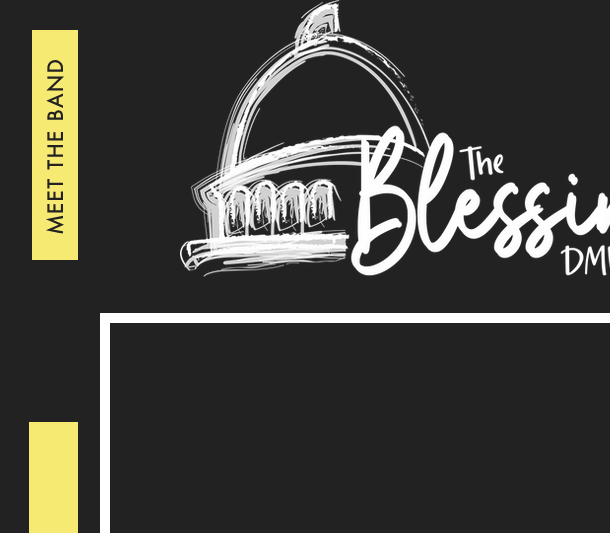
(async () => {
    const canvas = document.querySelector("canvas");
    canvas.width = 610;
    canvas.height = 533;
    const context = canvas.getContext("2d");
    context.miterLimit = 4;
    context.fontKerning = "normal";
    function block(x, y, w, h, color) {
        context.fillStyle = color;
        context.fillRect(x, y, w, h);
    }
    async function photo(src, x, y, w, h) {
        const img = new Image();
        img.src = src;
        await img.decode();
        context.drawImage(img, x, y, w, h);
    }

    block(0, 0, 610, 533, "rgb(34, 34, 34)");
    block(32, 30, 46, 230, "rgb(247, 234, 115)");
    context.save();
    context.beginPath();
    context.moveTo(41.5, 233.5);
    context.lineTo(41.5, 57.5);
    context.lineTo(68.5, 57.5);
    context.lineTo(68.5, 233.5);
    context.closePath();
    context.clip();
    context.letterSpacing = "2px";
    context.font = "bold 20px futura";
    context.fillStyle = "rgb(34, 34, 34)";
    context.save();
    context.translate(63, 234);
    context.rotate(-90 * Math.PI / 180);
    context.fillText("MEET THE BAND", 0, 0);
    context.restore();
    context.restore();
    await photo("media/1.png", 180, 0, 430, 277);
    block(29, 422, 49, 111, "rgb(247, 234, 115)");
    context.strokeStyle = "rgb(255, 255, 255)";
    context.lineWidth = 10;
    context.strokeRect(105, 318, 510, 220);
})();
